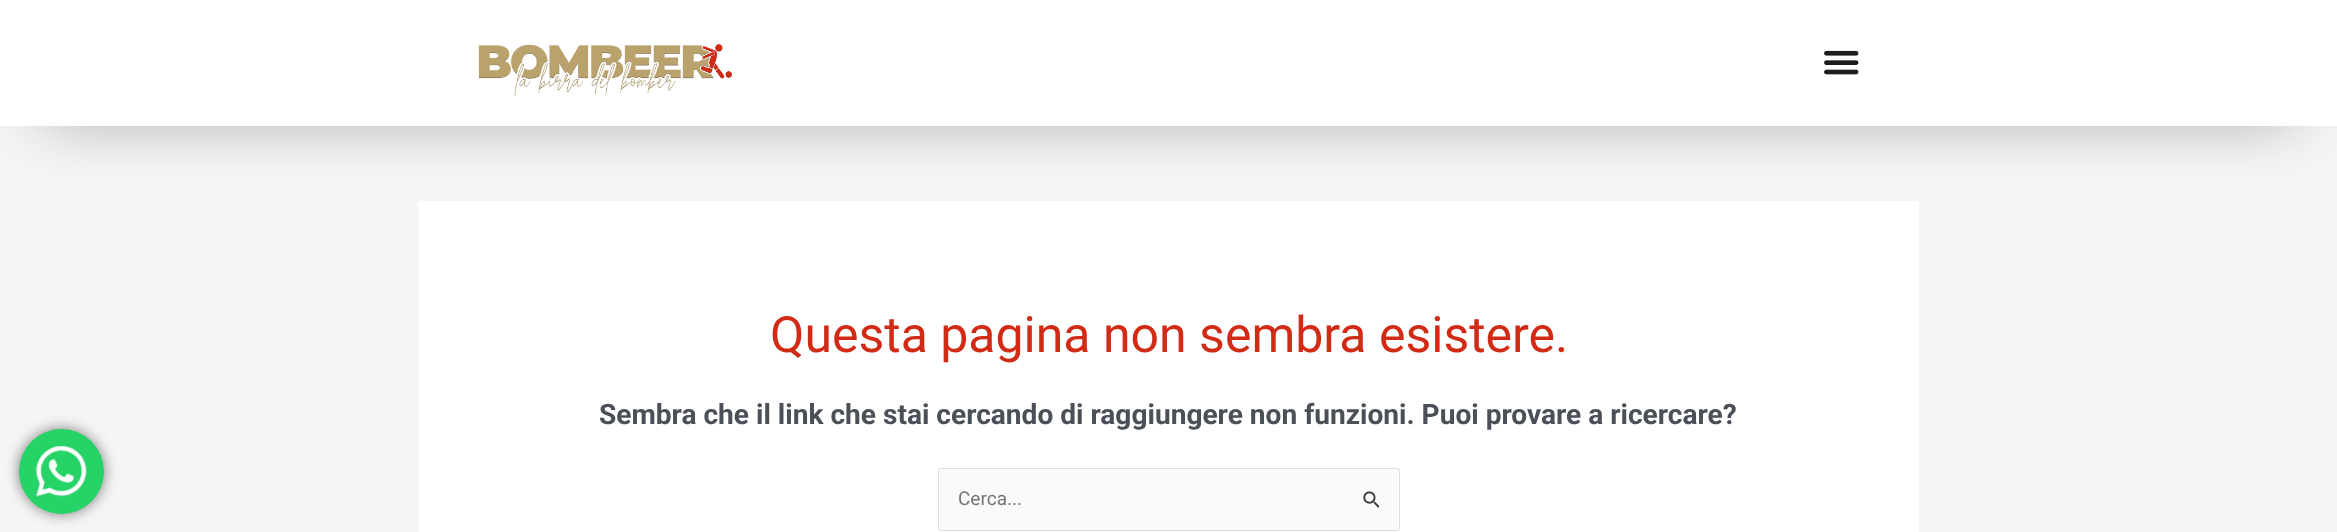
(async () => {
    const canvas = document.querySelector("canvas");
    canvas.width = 2337;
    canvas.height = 532;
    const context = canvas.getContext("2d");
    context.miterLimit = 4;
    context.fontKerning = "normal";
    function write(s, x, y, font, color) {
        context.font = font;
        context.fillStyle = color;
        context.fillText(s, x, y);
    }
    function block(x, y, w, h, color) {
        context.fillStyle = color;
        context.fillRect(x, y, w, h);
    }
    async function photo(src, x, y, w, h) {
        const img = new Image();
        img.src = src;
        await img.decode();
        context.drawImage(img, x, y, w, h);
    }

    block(0, 0, 2337, 532, "rgb(245, 245, 245)");
    context.fillStyle = "rgba(0, 0, 0, 0.5)";
    context.filter = "blur(7px)";
    context.beginPath();
    context.roundRect(19, 429, 85, 85, 42.5);
    context.fill();
    context.filter = "none";
    context.fillStyle = "rgb(37, 211, 102)";
    context.beginPath();
    context.arc(61.5, 471.5, 42.5, 0, Math.PI * 2);
    context.fill();
    await photo("media/1.png", 36, 446, 51, 51);
    block(419, 201, 1500, 331, "rgb(255, 255, 255)");
    context.fillStyle = "rgba(0, 0, 0, 0.5)";
    context.filter = "blur(33px)";
    context.beginPath();
    context.rect(45, 74, 2248, 36);
    context.fill();
    context.filter = "none";
    block(0, 0, 2337, 126, "rgb(255, 255, 255)");
    await photo("media/2.png", 478, 44, 254, 52);
    await photo("media/3.png", 1824, 50, 35, 25);
    write("Questa pagina non sembra esistere.", 770, 352, "50px Roboto", "rgb(209, 43, 21)");
    write("Sembra che il link che stai cercando di raggiungere non funzioni. Puoi provare a ricercare?", 599, 424, "bold 28.1px Roboto", "rgb(75, 79, 88)");
    context.fillStyle = "rgb(250, 250, 250)";
    context.beginPath();
    context.roundRect(938.5, 468.5, 461, 62, 2);
    context.fill();
    context.strokeStyle = "rgb(221, 221, 221)";
    context.stroke();
    write("Cerca...", 958, 505, "19px Roboto", "rgb(117, 117, 117)");
    await photo("media/4.png", 1363, 491, 16, 17);
})();
